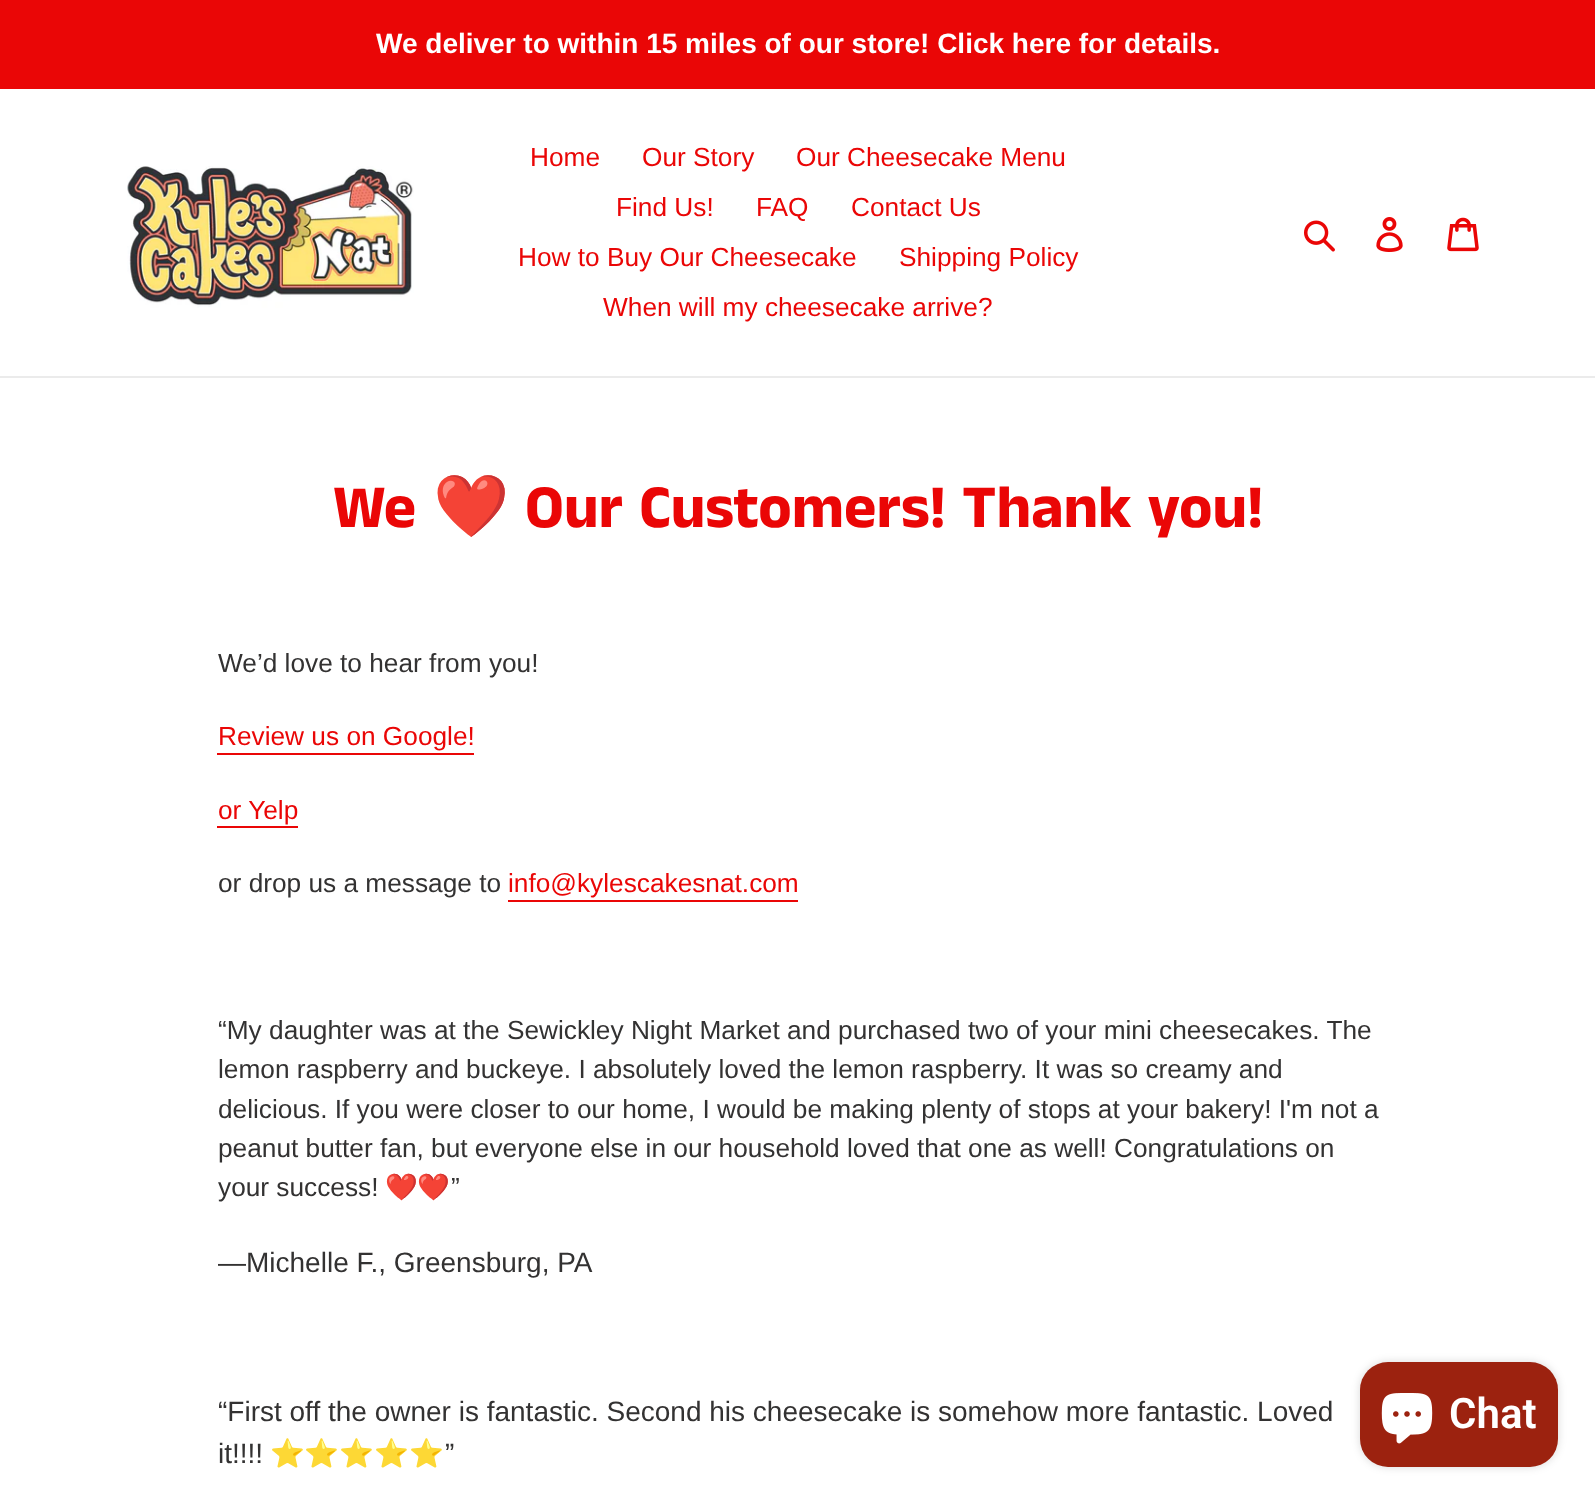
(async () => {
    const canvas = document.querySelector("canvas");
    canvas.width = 1595;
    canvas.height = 1502;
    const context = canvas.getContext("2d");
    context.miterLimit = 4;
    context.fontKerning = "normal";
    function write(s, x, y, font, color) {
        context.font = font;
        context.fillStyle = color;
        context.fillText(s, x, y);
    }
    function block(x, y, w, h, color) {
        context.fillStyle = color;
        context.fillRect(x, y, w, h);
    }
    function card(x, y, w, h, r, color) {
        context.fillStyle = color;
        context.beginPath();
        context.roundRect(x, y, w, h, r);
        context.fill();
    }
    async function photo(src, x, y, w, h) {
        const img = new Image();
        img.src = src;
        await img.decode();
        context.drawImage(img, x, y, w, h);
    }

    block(0, 0, 1595, 1502, "rgb(255, 255, 255)");
    block(0, 0, 1595, 89, "rgb(234, 6, 6)");
    write("We deliver to within 15 miles of our store! Click here for details.", 376, 53, "bold 28px Liberation Sans", "rgb(255, 255, 255)");
    block(0, 376, 1595, 2, "rgb(235, 235, 235)");
    await photo("media/1.png", 127, 166, 287, 142);
    write("Home", 530, 166, "26.25px Liberation Sans", "rgb(234, 6, 6)");
    write("Our Story", 642, 166, "26.25px Liberation Sans", "rgb(234, 6, 6)");
    write("Our Cheesecake Menu", 796, 166, "26.25px Liberation Sans", "rgb(234, 6, 6)");
    write("Find Us!", 616, 216, "26.25px Liberation Sans", "rgb(234, 6, 6)");
    write("FAQ", 756, 216, "26.25px Liberation Sans", "rgb(234, 6, 6)");
    write("Contact Us", 851, 216, "26.25px Liberation Sans", "rgb(234, 6, 6)");
    write("How to Buy Our Cheesecake", 518, 266, "26.25px Liberation Sans", "rgb(234, 6, 6)");
    write("Shipping Policy", 899, 266, "26.25px Liberation Sans", "rgb(234, 6, 6)");
    write("When will my cheesecake arrive?", 603, 316, "26.25px Liberation Sans", "rgb(234, 6, 6)");
    await photo("media/2.png", 1304, 220, 31, 32);
    await photo("media/3.png", 1376, 217, 27, 35);
    await photo("media/4.png", 1447, 217, 32, 35);
    write("We", 333, 527, "bold 61.25px Anek Tamil", "rgb(234, 6, 6)");
    write("❤️", 433, 527, "bold 61.25px Noto Color Emoji", "rgb(234, 6, 6)");
    write("Our Customers! Thank you!", 525, 527, "bold 61.25px Anek Tamil", "rgb(234, 6, 6)");
    write("We’d love to hear from you!", 218, 672, "26.25px Liberation Sans", "rgb(51, 50, 50)");
    write("Review us on Google!", 218, 745, "26.25px Liberation Sans", "rgb(234, 6, 6)");
    block(217, 753, 257, 2, "rgb(234, 6, 6)");
    write("or Yelp", 218, 819, "26.25px Liberation Sans", "rgb(234, 6, 6)");
    block(217, 826, 81, 2, "rgb(234, 6, 6)");
    write("or drop us a message to", 218, 892, "26.25px Liberation Sans", "rgb(51, 50, 50)");
    write("info@kylescakesnat.com", 508, 892, "26.25px Liberation Sans", "rgb(234, 6, 6)");
    block(508, 900, 290, 2, "rgb(234, 6, 6)");
    write("“My daughter was at the Sewickley Night Market and purchased two of your mini cheesecakes. The", 218, 1039, "26.25px Liberation Sans", "rgb(51, 50, 50)");
    write("lemon raspberry and buckeye. I absolutely loved the lemon raspberry. It was so creamy and", 218, 1078, "26.25px Liberation Sans", "rgb(51, 50, 50)");
    write("delicious. If you were closer to our home, I would be making plenty of stops at your bakery! I'm not a", 218, 1118, "26.25px Liberation Sans", "rgb(51, 50, 50)");
    write("peanut butter fan, but everyone else in our household loved that one as well! Congratulations on", 218, 1157, "26.25px Liberation Sans", "rgb(51, 50, 50)");
    write("your success!", 218, 1196, "26.25px Liberation Sans", "rgb(51, 50, 50)");
    write("❤️❤️", 385, 1196, "26.25px Noto Color Emoji", "rgb(51, 50, 50)");
    write("”", 451, 1196, "26.25px Liberation Sans", "rgb(51, 50, 50)");
    write("—Michelle F., Greensburg, PA", 218, 1272, "28px Liberation Sans", "rgb(51, 50, 50)");
    write("“First off the owner is fantastic. Second his cheesecake is somehow more fantastic. Loved", 218, 1421, "28px Liberation Sans", "rgb(51, 50, 50)");
    write("it!!!!", 218, 1463, "28px Liberation Sans", "rgb(51, 50, 50)");
    write("⭐️⭐️⭐️⭐️⭐️", 270, 1463, "28px Noto Color Emoji", "rgb(51, 50, 50)");
    write("”", 445, 1463, "28px Liberation Sans", "rgb(51, 50, 50)");
    context.fillStyle = "rgba(0, 0, 0, 0.15)";
    context.filter = "blur(4.5px)";
    context.beginPath();
    context.roundRect(1360, 1362, 198, 105, 28);
    context.fill();
    context.filter = "none";
    card(1360, 1362, 198, 105, 28, "rgb(156, 34, 15)");
    await photo("media/5.png", 1381, 1393, 52, 51);
    write("Chat", 1449, 1428, "600 42px Roboto", "rgb(255, 255, 255)");
})();
